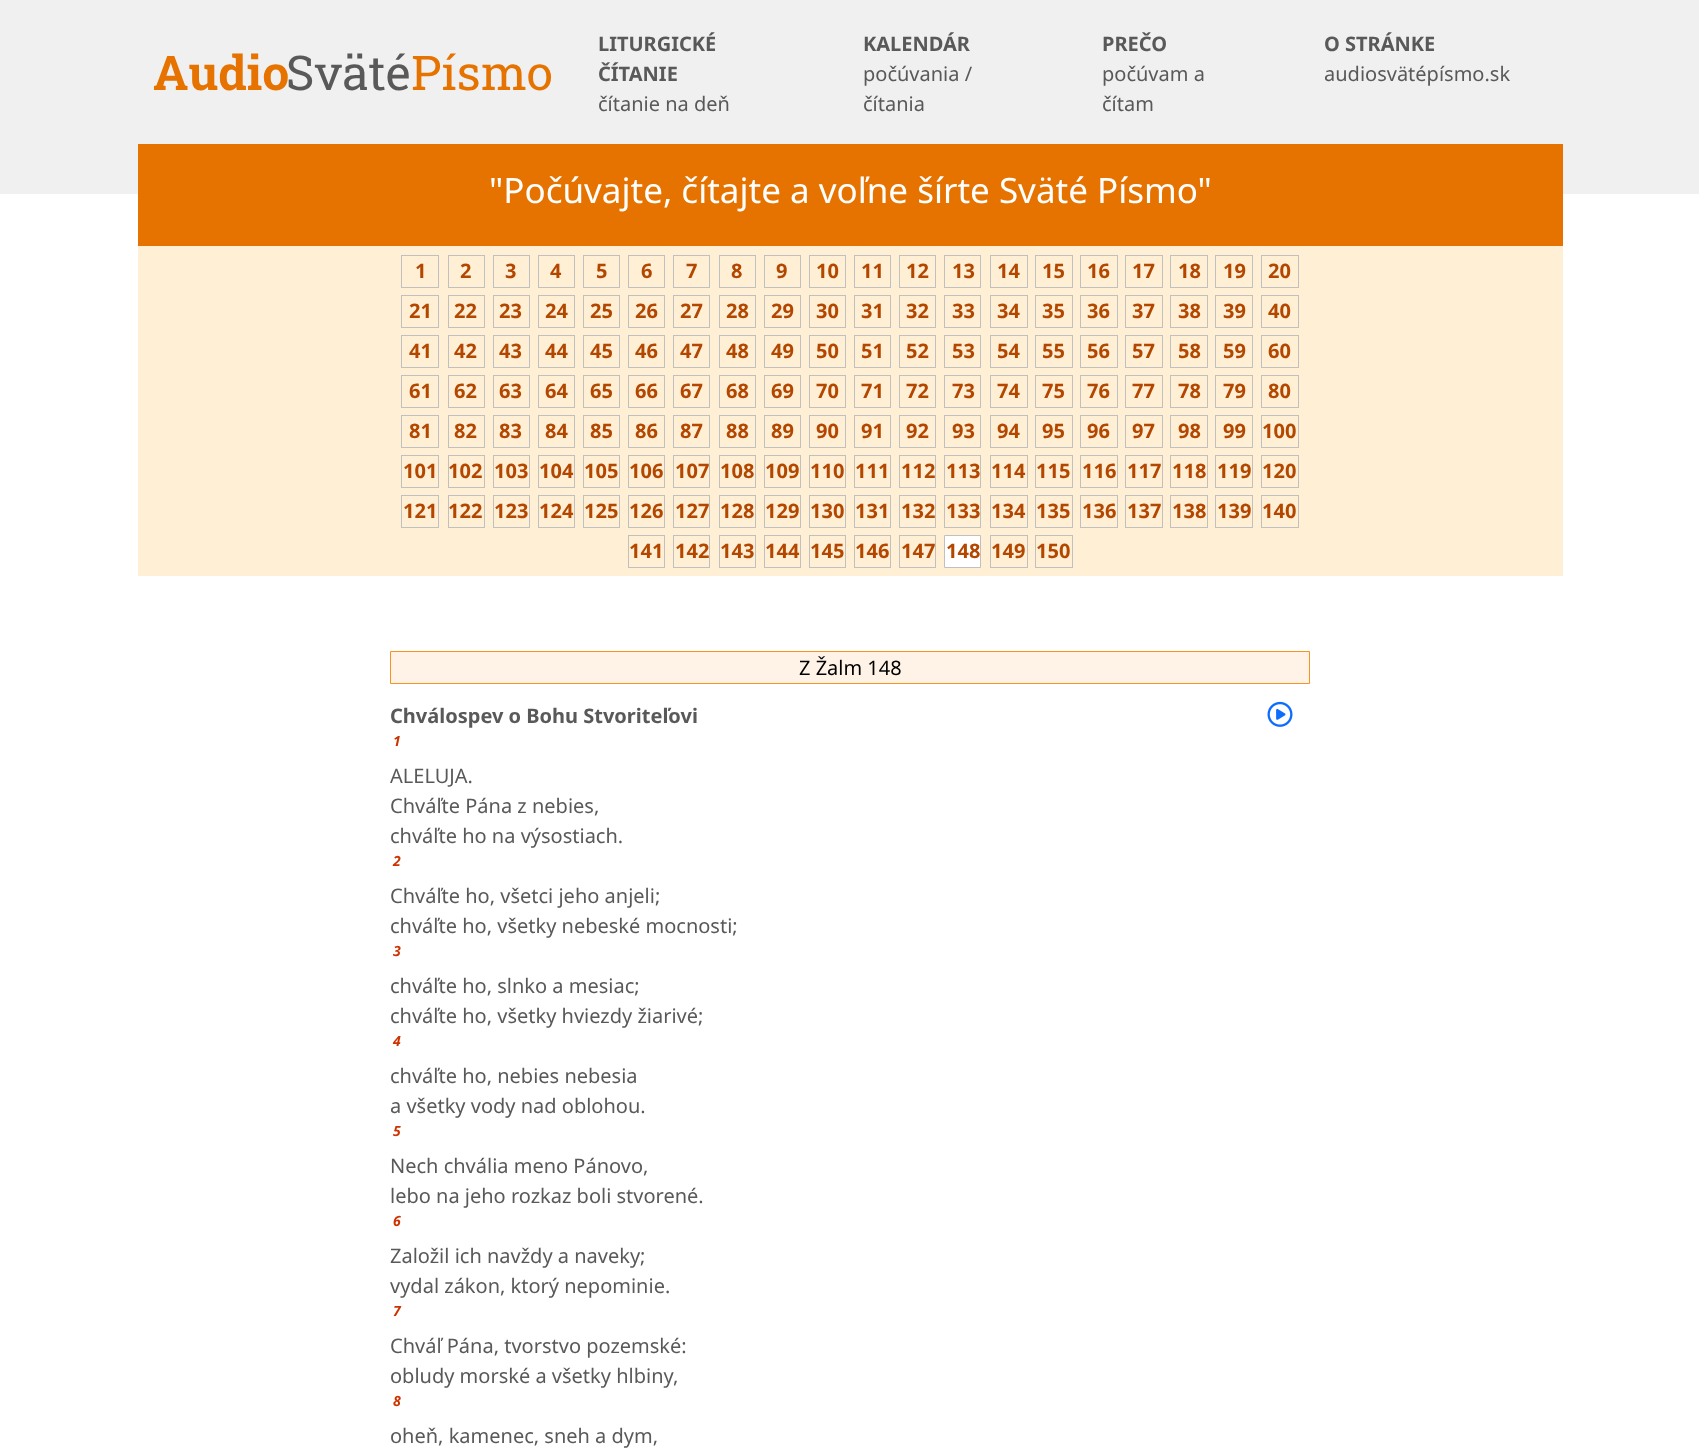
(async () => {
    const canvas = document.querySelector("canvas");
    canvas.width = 1699;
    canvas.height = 1454;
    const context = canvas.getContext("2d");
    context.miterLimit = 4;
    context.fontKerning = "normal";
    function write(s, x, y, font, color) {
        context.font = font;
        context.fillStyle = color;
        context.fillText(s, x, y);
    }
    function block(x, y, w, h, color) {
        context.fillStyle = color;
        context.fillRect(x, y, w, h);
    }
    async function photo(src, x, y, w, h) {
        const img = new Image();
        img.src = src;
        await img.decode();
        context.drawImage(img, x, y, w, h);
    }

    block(0, 0, 1699, 1454, "rgb(255, 255, 255)");
    block(0, 0, 1699, 144, "rgb(240, 240, 240)");
    write("Audio", 153, 90, "bold 48px Roboto Slab", "rgb(230, 115, 0)");
    write("Sväté", 286, 90, "48px Roboto Slab", "rgb(89, 89, 89)");
    write("Písmo", 411, 90, "48px Roboto Slab", "rgb(230, 115, 0)");
    write("LITURGICKÉ", 598, 51, "bold 20px Noto Sans", "rgb(89, 89, 89)");
    write("ČÍTANIE", 598, 81, "bold 20px Noto Sans", "rgb(89, 89, 89)");
    write("čítanie na deň", 598, 111, "20px Noto Sans", "rgb(89, 89, 89)");
    write("KALENDÁR", 863, 51, "bold 20px Noto Sans", "rgb(89, 89, 89)");
    write("počúvania /", 863, 81, "20px Noto Sans", "rgb(89, 89, 89)");
    write("čítania", 863, 111, "20px Noto Sans", "rgb(89, 89, 89)");
    write("PREČO", 1102, 51, "bold 20px Noto Sans", "rgb(89, 89, 89)");
    write("počúvam a", 1102, 81, "20px Noto Sans", "rgb(89, 89, 89)");
    write("čítam", 1102, 111, "20px Noto Sans", "rgb(89, 89, 89)");
    write("O STRÁNKE", 1324, 51, "bold 20px Noto Sans", "rgb(89, 89, 89)");
    write("audiosvätépísmo.sk", 1324, 81, "20px Noto Sans", "rgb(89, 89, 89)");
    block(0, 144, 1699, 50, "rgb(240, 240, 240)");
    block(138, 144, 1425, 102, "rgb(230, 115, 0)");
    write("\"Počúvajte, čítajte a voľne šírte Sväté Písmo\"", 489, 203, "35px Noto Sans", "rgb(255, 255, 255)");
    block(138, 246, 1425, 330, "rgb(255, 239, 213)");
    context.strokeStyle = "rgb(192, 192, 192)";
    context.strokeRect(401.5, 255.5, 37, 32);
    write("1", 415, 278, "bold 20px Noto Sans", "rgb(179, 71, 0)");
    context.strokeRect(448.5, 255.5, 36, 32);
    write("2", 460, 278, "bold 20px Noto Sans", "rgb(179, 71, 0)");
    context.strokeRect(493.5, 255.5, 36, 32);
    write("3", 505, 278, "bold 20px Noto Sans", "rgb(179, 71, 0)");
    context.strokeRect(538.5, 255.5, 36, 32);
    write("4", 550, 278, "bold 20px Noto Sans", "rgb(179, 71, 0)");
    context.strokeRect(583.5, 255.5, 36, 32);
    write("5", 596, 278, "bold 20px Noto Sans", "rgb(179, 71, 0)");
    context.strokeRect(628.5, 255.5, 36, 32);
    write("6", 641, 278, "bold 20px Noto Sans", "rgb(179, 71, 0)");
    context.strokeRect(673.5, 255.5, 36, 32);
    write("7", 686, 278, "bold 20px Noto Sans", "rgb(179, 71, 0)");
    context.strokeRect(719.5, 255.5, 36, 32);
    write("8", 731, 278, "bold 20px Noto Sans", "rgb(179, 71, 0)");
    context.strokeRect(764.5, 255.5, 36, 32);
    write("9", 776, 278, "bold 20px Noto Sans", "rgb(179, 71, 0)");
    context.strokeRect(809.5, 255.5, 36, 32);
    write("10", 816, 278, "bold 20px Noto Sans", "rgb(179, 71, 0)");
    context.strokeRect(854.5, 255.5, 36, 32);
    write("11", 861, 278, "bold 20px Noto Sans", "rgb(179, 71, 0)");
    context.strokeRect(899.5, 255.5, 36, 32);
    write("12", 906, 278, "bold 20px Noto Sans", "rgb(179, 71, 0)");
    context.strokeRect(944.5, 255.5, 36, 32);
    write("13", 952, 278, "bold 20px Noto Sans", "rgb(179, 71, 0)");
    context.strokeRect(990.5, 255.5, 37, 32);
    write("14", 997, 278, "bold 20px Noto Sans", "rgb(179, 71, 0)");
    context.strokeRect(1035.5, 255.5, 37, 32);
    write("15", 1042, 278, "bold 20px Noto Sans", "rgb(179, 71, 0)");
    context.strokeRect(1080.5, 255.5, 37, 32);
    write("16", 1087, 278, "bold 20px Noto Sans", "rgb(179, 71, 0)");
    context.strokeRect(1125.5, 255.5, 37, 32);
    write("17", 1132, 278, "bold 20px Noto Sans", "rgb(179, 71, 0)");
    context.strokeRect(1170.5, 255.5, 37, 32);
    write("18", 1178, 278, "bold 20px Noto Sans", "rgb(179, 71, 0)");
    context.strokeRect(1215.5, 255.5, 37, 32);
    write("19", 1223, 278, "bold 20px Noto Sans", "rgb(179, 71, 0)");
    context.strokeRect(1261.5, 255.5, 37, 32);
    write("20", 1268, 278, "bold 20px Noto Sans", "rgb(179, 71, 0)");
    context.strokeRect(401.5, 295.5, 37, 32);
    write("21", 409, 318, "bold 20px Noto Sans", "rgb(179, 71, 0)");
    context.strokeRect(448.5, 295.5, 36, 32);
    write("22", 454, 318, "bold 20px Noto Sans", "rgb(179, 71, 0)");
    context.strokeRect(493.5, 295.5, 36, 32);
    write("23", 499, 318, "bold 20px Noto Sans", "rgb(179, 71, 0)");
    context.strokeRect(538.5, 295.5, 36, 32);
    write("24", 545, 318, "bold 20px Noto Sans", "rgb(179, 71, 0)");
    context.strokeRect(583.5, 295.5, 36, 32);
    write("25", 590, 318, "bold 20px Noto Sans", "rgb(179, 71, 0)");
    context.strokeRect(628.5, 295.5, 36, 32);
    write("26", 635, 318, "bold 20px Noto Sans", "rgb(179, 71, 0)");
    context.strokeRect(673.5, 295.5, 36, 32);
    write("27", 680, 318, "bold 20px Noto Sans", "rgb(179, 71, 0)");
    context.strokeRect(719.5, 295.5, 36, 32);
    write("28", 726, 318, "bold 20px Noto Sans", "rgb(179, 71, 0)");
    context.strokeRect(764.5, 295.5, 36, 32);
    write("29", 771, 318, "bold 20px Noto Sans", "rgb(179, 71, 0)");
    context.strokeRect(809.5, 295.5, 36, 32);
    write("30", 816, 318, "bold 20px Noto Sans", "rgb(179, 71, 0)");
    context.strokeRect(854.5, 295.5, 36, 32);
    write("31", 861, 318, "bold 20px Noto Sans", "rgb(179, 71, 0)");
    context.strokeRect(899.5, 295.5, 36, 32);
    write("32", 906, 318, "bold 20px Noto Sans", "rgb(179, 71, 0)");
    context.strokeRect(944.5, 295.5, 36, 32);
    write("33", 952, 318, "bold 20px Noto Sans", "rgb(179, 71, 0)");
    context.strokeRect(990.5, 295.5, 37, 32);
    write("34", 997, 318, "bold 20px Noto Sans", "rgb(179, 71, 0)");
    context.strokeRect(1035.5, 295.5, 37, 32);
    write("35", 1042, 318, "bold 20px Noto Sans", "rgb(179, 71, 0)");
    context.strokeRect(1080.5, 295.5, 37, 32);
    write("36", 1087, 318, "bold 20px Noto Sans", "rgb(179, 71, 0)");
    context.strokeRect(1125.5, 295.5, 37, 32);
    write("37", 1132, 318, "bold 20px Noto Sans", "rgb(179, 71, 0)");
    context.strokeRect(1170.5, 295.5, 37, 32);
    write("38", 1178, 318, "bold 20px Noto Sans", "rgb(179, 71, 0)");
    context.strokeRect(1215.5, 295.5, 37, 32);
    write("39", 1223, 318, "bold 20px Noto Sans", "rgb(179, 71, 0)");
    context.strokeRect(1261.5, 295.5, 37, 32);
    write("40", 1268, 318, "bold 20px Noto Sans", "rgb(179, 71, 0)");
    context.strokeRect(401.5, 335.5, 37, 32);
    write("41", 409, 358, "bold 20px Noto Sans", "rgb(179, 71, 0)");
    context.strokeRect(448.5, 335.5, 36, 32);
    write("42", 454, 358, "bold 20px Noto Sans", "rgb(179, 71, 0)");
    context.strokeRect(493.5, 335.5, 36, 32);
    write("43", 499, 358, "bold 20px Noto Sans", "rgb(179, 71, 0)");
    context.strokeRect(538.5, 335.5, 36, 32);
    write("44", 545, 358, "bold 20px Noto Sans", "rgb(179, 71, 0)");
    context.strokeRect(583.5, 335.5, 36, 32);
    write("45", 590, 358, "bold 20px Noto Sans", "rgb(179, 71, 0)");
    context.strokeRect(628.5, 335.5, 36, 32);
    write("46", 635, 358, "bold 20px Noto Sans", "rgb(179, 71, 0)");
    context.strokeRect(673.5, 335.5, 36, 32);
    write("47", 680, 358, "bold 20px Noto Sans", "rgb(179, 71, 0)");
    context.strokeRect(719.5, 335.5, 36, 32);
    write("48", 726, 358, "bold 20px Noto Sans", "rgb(179, 71, 0)");
    context.strokeRect(764.5, 335.5, 36, 32);
    write("49", 771, 358, "bold 20px Noto Sans", "rgb(179, 71, 0)");
    context.strokeRect(809.5, 335.5, 36, 32);
    write("50", 816, 358, "bold 20px Noto Sans", "rgb(179, 71, 0)");
    context.strokeRect(854.5, 335.5, 36, 32);
    write("51", 861, 358, "bold 20px Noto Sans", "rgb(179, 71, 0)");
    context.strokeRect(899.5, 335.5, 36, 32);
    write("52", 906, 358, "bold 20px Noto Sans", "rgb(179, 71, 0)");
    context.strokeRect(944.5, 335.5, 36, 32);
    write("53", 952, 358, "bold 20px Noto Sans", "rgb(179, 71, 0)");
    context.strokeRect(990.5, 335.5, 37, 32);
    write("54", 997, 358, "bold 20px Noto Sans", "rgb(179, 71, 0)");
    context.strokeRect(1035.5, 335.5, 37, 32);
    write("55", 1042, 358, "bold 20px Noto Sans", "rgb(179, 71, 0)");
    context.strokeRect(1080.5, 335.5, 37, 32);
    write("56", 1087, 358, "bold 20px Noto Sans", "rgb(179, 71, 0)");
    context.strokeRect(1125.5, 335.5, 37, 32);
    write("57", 1132, 358, "bold 20px Noto Sans", "rgb(179, 71, 0)");
    context.strokeRect(1170.5, 335.5, 37, 32);
    write("58", 1178, 358, "bold 20px Noto Sans", "rgb(179, 71, 0)");
    context.strokeRect(1215.5, 335.5, 37, 32);
    write("59", 1223, 358, "bold 20px Noto Sans", "rgb(179, 71, 0)");
    context.strokeRect(1261.5, 335.5, 37, 32);
    write("60", 1268, 358, "bold 20px Noto Sans", "rgb(179, 71, 0)");
    context.strokeRect(401.5, 375.5, 37, 32);
    write("61", 409, 398, "bold 20px Noto Sans", "rgb(179, 71, 0)");
    context.strokeRect(448.5, 375.5, 36, 32);
    write("62", 454, 398, "bold 20px Noto Sans", "rgb(179, 71, 0)");
    context.strokeRect(493.5, 375.5, 36, 32);
    write("63", 499, 398, "bold 20px Noto Sans", "rgb(179, 71, 0)");
    context.strokeRect(538.5, 375.5, 36, 32);
    write("64", 545, 398, "bold 20px Noto Sans", "rgb(179, 71, 0)");
    context.strokeRect(583.5, 375.5, 36, 32);
    write("65", 590, 398, "bold 20px Noto Sans", "rgb(179, 71, 0)");
    context.strokeRect(628.5, 375.5, 36, 32);
    write("66", 635, 398, "bold 20px Noto Sans", "rgb(179, 71, 0)");
    context.strokeRect(673.5, 375.5, 36, 32);
    write("67", 680, 398, "bold 20px Noto Sans", "rgb(179, 71, 0)");
    context.strokeRect(719.5, 375.5, 36, 32);
    write("68", 726, 398, "bold 20px Noto Sans", "rgb(179, 71, 0)");
    context.strokeRect(764.5, 375.5, 36, 32);
    write("69", 771, 398, "bold 20px Noto Sans", "rgb(179, 71, 0)");
    context.strokeRect(809.5, 375.5, 36, 32);
    write("70", 816, 398, "bold 20px Noto Sans", "rgb(179, 71, 0)");
    context.strokeRect(854.5, 375.5, 36, 32);
    write("71", 861, 398, "bold 20px Noto Sans", "rgb(179, 71, 0)");
    context.strokeRect(899.5, 375.5, 36, 32);
    write("72", 906, 398, "bold 20px Noto Sans", "rgb(179, 71, 0)");
    context.strokeRect(944.5, 375.5, 36, 32);
    write("73", 952, 398, "bold 20px Noto Sans", "rgb(179, 71, 0)");
    context.strokeRect(990.5, 375.5, 37, 32);
    write("74", 997, 398, "bold 20px Noto Sans", "rgb(179, 71, 0)");
    context.strokeRect(1035.5, 375.5, 37, 32);
    write("75", 1042, 398, "bold 20px Noto Sans", "rgb(179, 71, 0)");
    context.strokeRect(1080.5, 375.5, 37, 32);
    write("76", 1087, 398, "bold 20px Noto Sans", "rgb(179, 71, 0)");
    context.strokeRect(1125.5, 375.5, 37, 32);
    write("77", 1132, 398, "bold 20px Noto Sans", "rgb(179, 71, 0)");
    context.strokeRect(1170.5, 375.5, 37, 32);
    write("78", 1178, 398, "bold 20px Noto Sans", "rgb(179, 71, 0)");
    context.strokeRect(1215.5, 375.5, 37, 32);
    write("79", 1223, 398, "bold 20px Noto Sans", "rgb(179, 71, 0)");
    context.strokeRect(1261.5, 375.5, 37, 32);
    write("80", 1268, 398, "bold 20px Noto Sans", "rgb(179, 71, 0)");
    context.strokeRect(401.5, 415.5, 37, 32);
    write("81", 409, 438, "bold 20px Noto Sans", "rgb(179, 71, 0)");
    context.strokeRect(448.5, 415.5, 36, 32);
    write("82", 454, 438, "bold 20px Noto Sans", "rgb(179, 71, 0)");
    context.strokeRect(493.5, 415.5, 36, 32);
    write("83", 499, 438, "bold 20px Noto Sans", "rgb(179, 71, 0)");
    context.strokeRect(538.5, 415.5, 36, 32);
    write("84", 545, 438, "bold 20px Noto Sans", "rgb(179, 71, 0)");
    context.strokeRect(583.5, 415.5, 36, 32);
    write("85", 590, 438, "bold 20px Noto Sans", "rgb(179, 71, 0)");
    context.strokeRect(628.5, 415.5, 36, 32);
    write("86", 635, 438, "bold 20px Noto Sans", "rgb(179, 71, 0)");
    context.strokeRect(673.5, 415.5, 36, 32);
    write("87", 680, 438, "bold 20px Noto Sans", "rgb(179, 71, 0)");
    context.strokeRect(719.5, 415.5, 36, 32);
    write("88", 726, 438, "bold 20px Noto Sans", "rgb(179, 71, 0)");
    context.strokeRect(764.5, 415.5, 36, 32);
    write("89", 771, 438, "bold 20px Noto Sans", "rgb(179, 71, 0)");
    context.strokeRect(809.5, 415.5, 36, 32);
    write("90", 816, 438, "bold 20px Noto Sans", "rgb(179, 71, 0)");
    context.strokeRect(854.5, 415.5, 36, 32);
    write("91", 861, 438, "bold 20px Noto Sans", "rgb(179, 71, 0)");
    context.strokeRect(899.5, 415.5, 36, 32);
    write("92", 906, 438, "bold 20px Noto Sans", "rgb(179, 71, 0)");
    context.strokeRect(944.5, 415.5, 36, 32);
    write("93", 952, 438, "bold 20px Noto Sans", "rgb(179, 71, 0)");
    context.strokeRect(990.5, 415.5, 37, 32);
    write("94", 997, 438, "bold 20px Noto Sans", "rgb(179, 71, 0)");
    context.strokeRect(1035.5, 415.5, 37, 32);
    write("95", 1042, 438, "bold 20px Noto Sans", "rgb(179, 71, 0)");
    context.strokeRect(1080.5, 415.5, 37, 32);
    write("96", 1087, 438, "bold 20px Noto Sans", "rgb(179, 71, 0)");
    context.strokeRect(1125.5, 415.5, 37, 32);
    write("97", 1132, 438, "bold 20px Noto Sans", "rgb(179, 71, 0)");
    context.strokeRect(1170.5, 415.5, 37, 32);
    write("98", 1178, 438, "bold 20px Noto Sans", "rgb(179, 71, 0)");
    context.strokeRect(1215.5, 415.5, 37, 32);
    write("99", 1223, 438, "bold 20px Noto Sans", "rgb(179, 71, 0)");
    context.strokeRect(1261.5, 415.5, 37, 32);
    write("100", 1262, 438, "bold 20px Noto Sans", "rgb(179, 71, 0)");
    context.strokeRect(401.5, 455.5, 37, 32);
    write("101", 403, 478, "bold 20px Noto Sans", "rgb(179, 71, 0)");
    context.strokeRect(448.5, 455.5, 36, 32);
    write("102", 448, 478, "bold 20px Noto Sans", "rgb(179, 71, 0)");
    context.strokeRect(493.5, 455.5, 36, 32);
    write("103", 494, 478, "bold 20px Noto Sans", "rgb(179, 71, 0)");
    context.strokeRect(538.5, 455.5, 36, 32);
    write("104", 539, 478, "bold 20px Noto Sans", "rgb(179, 71, 0)");
    context.strokeRect(583.5, 455.5, 36, 32);
    write("105", 584, 478, "bold 20px Noto Sans", "rgb(179, 71, 0)");
    context.strokeRect(628.5, 455.5, 36, 32);
    write("106", 629, 478, "bold 20px Noto Sans", "rgb(179, 71, 0)");
    context.strokeRect(673.5, 455.5, 36, 32);
    write("107", 675, 478, "bold 20px Noto Sans", "rgb(179, 71, 0)");
    context.strokeRect(719.5, 455.5, 36, 32);
    write("108", 720, 478, "bold 20px Noto Sans", "rgb(179, 71, 0)");
    context.strokeRect(764.5, 455.5, 36, 32);
    write("109", 765, 478, "bold 20px Noto Sans", "rgb(179, 71, 0)");
    context.strokeRect(809.5, 455.5, 36, 32);
    write("110", 810, 478, "bold 20px Noto Sans", "rgb(179, 71, 0)");
    context.strokeRect(854.5, 455.5, 36, 32);
    write("111", 855, 478, "bold 20px Noto Sans", "rgb(179, 71, 0)");
    context.strokeRect(899.5, 455.5, 36, 32);
    write("112", 901, 478, "bold 20px Noto Sans", "rgb(179, 71, 0)");
    context.strokeRect(944.5, 455.5, 36, 32);
    write("113", 946, 478, "bold 20px Noto Sans", "rgb(179, 71, 0)");
    context.strokeRect(990.5, 455.5, 37, 32);
    write("114", 991, 478, "bold 20px Noto Sans", "rgb(179, 71, 0)");
    context.strokeRect(1035.5, 455.5, 37, 32);
    write("115", 1036, 478, "bold 20px Noto Sans", "rgb(179, 71, 0)");
    context.strokeRect(1080.5, 455.5, 37, 32);
    write("116", 1082, 478, "bold 20px Noto Sans", "rgb(179, 71, 0)");
    context.strokeRect(1125.5, 455.5, 37, 32);
    write("117", 1127, 478, "bold 20px Noto Sans", "rgb(179, 71, 0)");
    context.strokeRect(1170.5, 455.5, 37, 32);
    write("118", 1172, 478, "bold 20px Noto Sans", "rgb(179, 71, 0)");
    context.strokeRect(1215.5, 455.5, 37, 32);
    write("119", 1217, 478, "bold 20px Noto Sans", "rgb(179, 71, 0)");
    context.strokeRect(1261.5, 455.5, 37, 32);
    write("120", 1262, 478, "bold 20px Noto Sans", "rgb(179, 71, 0)");
    context.strokeRect(401.5, 495.5, 37, 32);
    write("121", 403, 518, "bold 20px Noto Sans", "rgb(179, 71, 0)");
    context.strokeRect(448.5, 495.5, 36, 32);
    write("122", 448, 518, "bold 20px Noto Sans", "rgb(179, 71, 0)");
    context.strokeRect(493.5, 495.5, 36, 32);
    write("123", 494, 518, "bold 20px Noto Sans", "rgb(179, 71, 0)");
    context.strokeRect(538.5, 495.5, 36, 32);
    write("124", 539, 518, "bold 20px Noto Sans", "rgb(179, 71, 0)");
    context.strokeRect(583.5, 495.5, 36, 32);
    write("125", 584, 518, "bold 20px Noto Sans", "rgb(179, 71, 0)");
    context.strokeRect(628.5, 495.5, 36, 32);
    write("126", 629, 518, "bold 20px Noto Sans", "rgb(179, 71, 0)");
    context.strokeRect(673.5, 495.5, 36, 32);
    write("127", 675, 518, "bold 20px Noto Sans", "rgb(179, 71, 0)");
    context.strokeRect(719.5, 495.5, 36, 32);
    write("128", 720, 518, "bold 20px Noto Sans", "rgb(179, 71, 0)");
    context.strokeRect(764.5, 495.5, 36, 32);
    write("129", 765, 518, "bold 20px Noto Sans", "rgb(179, 71, 0)");
    context.strokeRect(809.5, 495.5, 36, 32);
    write("130", 810, 518, "bold 20px Noto Sans", "rgb(179, 71, 0)");
    context.strokeRect(854.5, 495.5, 36, 32);
    write("131", 855, 518, "bold 20px Noto Sans", "rgb(179, 71, 0)");
    context.strokeRect(899.5, 495.5, 36, 32);
    write("132", 901, 518, "bold 20px Noto Sans", "rgb(179, 71, 0)");
    context.strokeRect(944.5, 495.5, 36, 32);
    write("133", 946, 518, "bold 20px Noto Sans", "rgb(179, 71, 0)");
    context.strokeRect(990.5, 495.5, 37, 32);
    write("134", 991, 518, "bold 20px Noto Sans", "rgb(179, 71, 0)");
    context.strokeRect(1035.5, 495.5, 37, 32);
    write("135", 1036, 518, "bold 20px Noto Sans", "rgb(179, 71, 0)");
    context.strokeRect(1080.5, 495.5, 37, 32);
    write("136", 1082, 518, "bold 20px Noto Sans", "rgb(179, 71, 0)");
    context.strokeRect(1125.5, 495.5, 37, 32);
    write("137", 1127, 518, "bold 20px Noto Sans", "rgb(179, 71, 0)");
    context.strokeRect(1170.5, 495.5, 37, 32);
    write("138", 1172, 518, "bold 20px Noto Sans", "rgb(179, 71, 0)");
    context.strokeRect(1215.5, 495.5, 37, 32);
    write("139", 1217, 518, "bold 20px Noto Sans", "rgb(179, 71, 0)");
    context.strokeRect(1261.5, 495.5, 37, 32);
    write("140", 1262, 518, "bold 20px Noto Sans", "rgb(179, 71, 0)");
    context.strokeRect(628.5, 535.5, 36, 32);
    write("141", 629, 558, "bold 20px Noto Sans", "rgb(179, 71, 0)");
    context.strokeRect(673.5, 535.5, 36, 32);
    write("142", 675, 558, "bold 20px Noto Sans", "rgb(179, 71, 0)");
    context.strokeRect(719.5, 535.5, 36, 32);
    write("143", 720, 558, "bold 20px Noto Sans", "rgb(179, 71, 0)");
    context.strokeRect(764.5, 535.5, 36, 32);
    write("144", 765, 558, "bold 20px Noto Sans", "rgb(179, 71, 0)");
    context.strokeRect(809.5, 535.5, 36, 32);
    write("145", 810, 558, "bold 20px Noto Sans", "rgb(179, 71, 0)");
    context.strokeRect(854.5, 535.5, 36, 32);
    write("146", 855, 558, "bold 20px Noto Sans", "rgb(179, 71, 0)");
    context.strokeRect(899.5, 535.5, 36, 32);
    write("147", 901, 558, "bold 20px Noto Sans", "rgb(179, 71, 0)");
    context.fillStyle = "rgb(255, 255, 255)";
    context.beginPath();
    context.rect(944.5, 535.5, 36, 32);
    context.fill();
    context.stroke();
    write("148", 946, 558, "bold 20px Noto Sans", "rgb(179, 71, 0)");
    context.strokeRect(990.5, 535.5, 37, 32);
    write("149", 991, 558, "bold 20px Noto Sans", "rgb(179, 71, 0)");
    context.strokeRect(1035.5, 535.5, 37, 32);
    write("150", 1036, 558, "bold 20px Noto Sans", "rgb(179, 71, 0)");
    context.fillStyle = "rgb(254, 243, 230)";
    context.beginPath();
    context.rect(390.5, 651.5, 919, 32);
    context.fill();
    context.strokeStyle = "rgb(247, 147, 30)";
    context.stroke();
    write("Z Žalm 148", 799, 675, "20px Noto Sans", "rgb(0, 0, 0)");
    write("Chválospev o Bohu Stvoriteľovi", 390, 723, "bold 20px Noto Sans", "rgb(89, 89, 89)");
    await photo("media/1.png", 1267, 701, 26, 26);
    write("1", 393, 746, "italic bold 14px Noto Sans", "rgb(204, 51, 0)");
    write("ALELUJA.", 390, 783, "20px Noto Sans", "rgb(89, 89, 89)");
    write("Chváľte Pána z nebies,", 390, 813, "20px Noto Sans", "rgb(89, 89, 89)");
    write("chváľte ho na výsostiach.", 390, 843, "20px Noto Sans", "rgb(89, 89, 89)");
    write("2", 393, 866, "italic bold 14px Noto Sans", "rgb(204, 51, 0)");
    write("Chváľte ho, všetci jeho anjeli;", 390, 903, "20px Noto Sans", "rgb(89, 89, 89)");
    write("chváľte ho, všetky nebeské mocnosti;", 390, 933, "20px Noto Sans", "rgb(89, 89, 89)");
    write("3", 393, 956, "italic bold 14px Noto Sans", "rgb(204, 51, 0)");
    write("chváľte ho, slnko a mesiac;", 390, 993, "20px Noto Sans", "rgb(89, 89, 89)");
    write("chváľte ho, všetky hviezdy žiarivé;", 390, 1023, "20px Noto Sans", "rgb(89, 89, 89)");
    write("4", 393, 1046, "italic bold 14px Noto Sans", "rgb(204, 51, 0)");
    write("chváľte ho, nebies nebesia", 390, 1083, "20px Noto Sans", "rgb(89, 89, 89)");
    write("a všetky vody nad oblohou.", 390, 1113, "20px Noto Sans", "rgb(89, 89, 89)");
    write("5", 393, 1136, "italic bold 14px Noto Sans", "rgb(204, 51, 0)");
    write("Nech chvália meno Pánovo,", 390, 1173, "20px Noto Sans", "rgb(89, 89, 89)");
    write("lebo na jeho rozkaz boli stvorené.", 390, 1203, "20px Noto Sans", "rgb(89, 89, 89)");
    write("6", 393, 1226, "italic bold 14px Noto Sans", "rgb(204, 51, 0)");
    write("Založil ich navždy a naveky;", 390, 1263, "20px Noto Sans", "rgb(89, 89, 89)");
    write("vydal zákon, ktorý nepominie.", 390, 1293, "20px Noto Sans", "rgb(89, 89, 89)");
    write("7", 393, 1316, "italic bold 14px Noto Sans", "rgb(204, 51, 0)");
    write("Chváľ Pána, tvorstvo pozemské:", 390, 1353, "20px Noto Sans", "rgb(89, 89, 89)");
    write("obludy morské a všetky hlbiny,", 390, 1383, "20px Noto Sans", "rgb(89, 89, 89)");
    write("8", 393, 1406, "italic bold 14px Noto Sans", "rgb(204, 51, 0)");
    write("oheň, kamenec, sneh a dym,", 390, 1443, "20px Noto Sans", "rgb(89, 89, 89)");
})();
